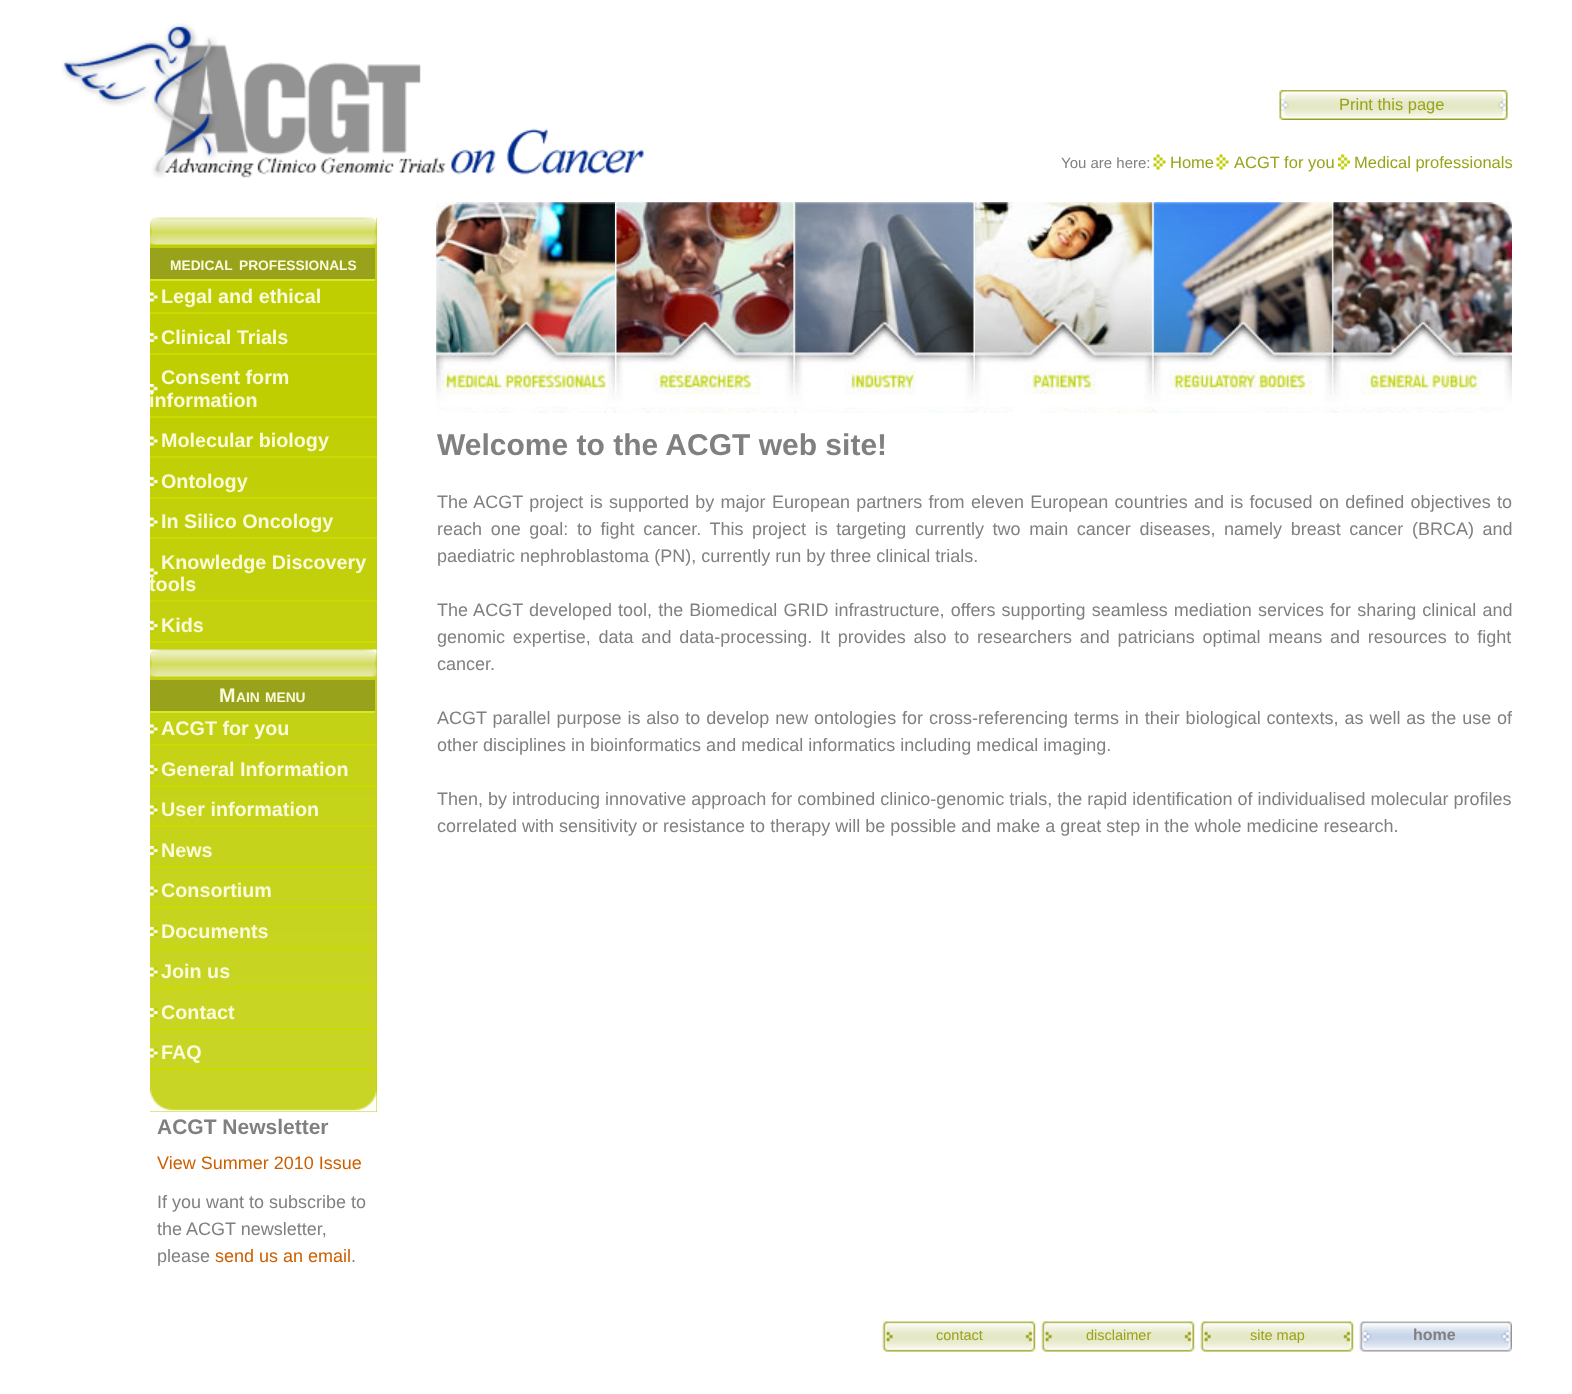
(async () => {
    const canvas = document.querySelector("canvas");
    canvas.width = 1572;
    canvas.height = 1394;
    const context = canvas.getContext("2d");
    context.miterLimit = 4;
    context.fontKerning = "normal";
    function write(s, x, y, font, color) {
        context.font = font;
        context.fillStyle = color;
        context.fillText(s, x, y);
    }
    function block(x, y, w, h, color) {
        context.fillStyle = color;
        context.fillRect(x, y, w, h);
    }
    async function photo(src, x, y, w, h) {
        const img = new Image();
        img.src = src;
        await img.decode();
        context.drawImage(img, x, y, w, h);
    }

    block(0, 0, 1572, 1394, "rgb(255, 255, 255)");
    await photo("media/1.png", 62, 23, 582, 155);
    await photo("media/2.png", 1279, 90, 229, 30);
    write("Print this page", 1339, 110, "16.5px Liberation Sans", "rgb(152, 163, 25)");
    write("You are here:", 1061, 168, "15px Liberation Sans", "rgb(128, 128, 128)");
    await photo("media/3.png", 1153, 154, 13, 16);
    write("Home", 1170, 168, "16.5px Liberation Sans", "rgb(152, 163, 25)");
    await photo("media/4.png", 1216, 154, 13, 16);
    write("ACGT for you", 1234, 168, "16.5px Liberation Sans", "rgb(152, 163, 25)");
    await photo("media/5.png", 1338, 154, 12, 16);
    write("Medical professionals", 1354, 168, "16.5px Liberation Sans", "rgb(152, 163, 25)");
    block(150, 218, 227, 894, "rgb(191, 206, 0)");
    await photo("media/6.png", 150, 424, 227, 688);
    await photo("media/7.png", 150, 217, 227, 28);
    block(150, 248, 225, 31, "rgb(152, 163, 27)");
    block(150, 279, 225, 2, "rgb(216, 231, 39)");
    write("MEDICAL", 170, 270, "bold 13.75px Liberation Sans", "rgb(249, 251, 220)");
    write("PROFESSIONALS", 239, 270, "bold 13.75px Liberation Sans", "rgb(249, 251, 220)");
    await photo("media/8.png", 150, 292, 8, 10);
    block(150, 312, 227, 2, "rgb(202, 219, 0)");
    write("Legal and ethical", 161, 303, "bold 19.75px Liberation Sans", "rgb(249, 251, 220)");
    await photo("media/9.png", 150, 333, 8, 9);
    block(150, 353, 227, 2, "rgb(202, 219, 0)");
    write("Clinical Trials", 161, 344, "bold 19.75px Liberation Sans", "rgb(249, 251, 220)");
    await photo("media/9.png", 150, 384, 8, 9);
    block(150, 416, 227, 2, "rgb(202, 219, 0)");
    write("Consent form", 161, 384, "bold 19.75px Liberation Sans", "rgb(249, 251, 220)");
    write("information", 149, 407, "bold 19.75px Liberation Sans", "rgb(249, 251, 220)");
    await photo("media/10.png", 150, 436, 8, 10);
    block(150, 456, 227, 2, "rgb(202, 219, 0)");
    write("Molecular biology", 161, 447, "bold 19.75px Liberation Sans", "rgb(249, 251, 220)");
    await photo("media/11.png", 150, 477, 8, 9);
    block(150, 497, 227, 2, "rgb(202, 219, 0)");
    write("Ontology", 161, 488, "bold 19.75px Liberation Sans", "rgb(249, 251, 220)");
    await photo("media/12.png", 150, 517, 8, 10);
    block(150, 537, 227, 2, "rgb(202, 219, 0)");
    write("In Silico Oncology", 161, 528, "bold 19.75px Liberation Sans", "rgb(249, 251, 220)");
    await photo("media/13.png", 150, 568, 8, 10);
    block(150, 600, 227, 2, "rgb(202, 219, 0)");
    write("Knowledge Discovery", 161, 569, "bold 19.75px Liberation Sans", "rgb(249, 251, 220)");
    write("tools", 149, 591, "bold 19.75px Liberation Sans", "rgb(249, 251, 220)");
    await photo("media/14.png", 150, 621, 8, 9);
    block(150, 641, 227, 2, "rgb(202, 219, 0)");
    write("Kids", 161, 632, "bold 19.75px Liberation Sans", "rgb(249, 251, 220)");
    await photo("media/15.png", 150, 649, 227, 28);
    block(150, 680, 225, 31, "rgb(152, 163, 27)");
    block(150, 711, 225, 2, "rgb(216, 231, 39)");
    write("M", 219, 702, "bold 19.75px Liberation Sans", "rgb(249, 251, 220)");
    write("AIN", 236, 702, "bold 13.75px Liberation Sans", "rgb(249, 251, 220)");
    write("MENU", 265, 702, "bold 13.75px Liberation Sans", "rgb(249, 251, 220)");
    await photo("media/16.png", 150, 724, 8, 10);
    block(150, 744, 227, 2, "rgb(202, 219, 0)");
    write("ACGT for you", 161, 735, "bold 19.75px Liberation Sans", "rgb(249, 251, 220)");
    await photo("media/17.png", 150, 765, 8, 9);
    block(150, 785, 227, 2, "rgb(202, 219, 0)");
    write("General Information", 161, 776, "bold 19.75px Liberation Sans", "rgb(249, 251, 220)");
    await photo("media/18.png", 150, 805, 8, 10);
    block(150, 825, 227, 2, "rgb(202, 219, 0)");
    write("User information", 161, 816, "bold 19.75px Liberation Sans", "rgb(249, 251, 220)");
    await photo("media/19.png", 150, 846, 8, 9);
    block(150, 866, 227, 2, "rgb(202, 219, 0)");
    write("News", 161, 857, "bold 19.75px Liberation Sans", "rgb(249, 251, 220)");
    await photo("media/20.png", 150, 886, 8, 10);
    block(150, 906, 227, 2, "rgb(202, 219, 0)");
    write("Consortium", 161, 897, "bold 19.75px Liberation Sans", "rgb(249, 251, 220)");
    await photo("media/21.png", 150, 927, 8, 9);
    block(150, 947, 227, 2, "rgb(202, 219, 0)");
    write("Documents", 161, 938, "bold 19.75px Liberation Sans", "rgb(249, 251, 220)");
    await photo("media/22.png", 150, 967, 8, 10);
    block(150, 987, 227, 2, "rgb(202, 219, 0)");
    write("Join us", 161, 978, "bold 19.75px Liberation Sans", "rgb(249, 251, 220)");
    await photo("media/23.png", 150, 1008, 8, 9);
    block(150, 1028, 227, 2, "rgb(202, 219, 0)");
    write("Contact", 161, 1019, "bold 19.75px Liberation Sans", "rgb(249, 251, 220)");
    await photo("media/24.png", 150, 1048, 8, 10);
    block(150, 1068, 227, 2, "rgb(202, 219, 0)");
    write("FAQ", 161, 1059, "bold 19.75px Liberation Sans", "rgb(249, 251, 220)");
    write("ACGT Newsletter", 157, 1134, "bold 21px Liberation Sans", "rgb(128, 128, 128)");
    write("View Summer 2010 Issue", 157, 1169, "18px Liberation Sans", "rgb(204, 95, 0)");
    write("If you want to subscribe to", 157, 1208, "18px Liberation Sans", "rgb(128, 128, 128)");
    write("the ACGT newsletter,", 157, 1235, "18px Liberation Sans", "rgb(128, 128, 128)");
    write("please", 157, 1262, "18px Liberation Sans", "rgb(128, 128, 128)");
    write("send us an email", 215, 1262, "18px Liberation Sans", "rgb(204, 95, 0)");
    write(".", 351, 1262, "18px Liberation Sans", "rgb(128, 128, 128)");
    await photo("media/25.png", 436, 202, 1076, 211);
    await photo("media/26.png", 436, 202, 179, 211);
    await photo("media/27.png", 615, 202, 179, 211);
    await photo("media/28.png", 793, 202, 179, 211);
    await photo("media/29.png", 975, 202, 179, 211);
    await photo("media/30.png", 1155, 202, 179, 211);
    await photo("media/31.png", 1333, 202, 162, 211);
    write("Welcome to the ACGT web site!", 437, 455, "bold 30px Liberation Sans", "rgb(128, 128, 128)");
    context.wordSpacing = "1.3px";
    write("The ACGT project is supported by major European partners from eleven European countries and is focused on defined objectives to", 437, 508, "18px Liberation Sans", "rgb(128, 128, 128)");
    context.wordSpacing = "3.6px";
    write("reach one goal: to fight cancer. This project is targeting currently two main cancer diseases, namely breast cancer (BRCA) and", 437, 535, "18px Liberation Sans", "rgb(128, 128, 128)");
    context.wordSpacing = "0px";
    write("paediatric nephroblastoma (PN), currently run by three clinical trials.", 437, 562, "18px Liberation Sans", "rgb(128, 128, 128)");
    context.wordSpacing = "1.1px";
    write("The ACGT developed tool, the Biomedical GRID infrastructure, offers supporting seamless mediation services for sharing clinical and", 437, 616, "18px Liberation Sans", "rgb(128, 128, 128)");
    context.wordSpacing = "2.75px";
    write("genomic expertise, data and data-processing. It provides also to researchers and patricians optimal means and resources to fight", 437, 643, "18px Liberation Sans", "rgb(128, 128, 128)");
    context.wordSpacing = "0px";
    write("cancer.", 437, 670, "18px Liberation Sans", "rgb(128, 128, 128)");
    context.wordSpacing = "0.9px";
    write("ACGT parallel purpose is also to develop new ontologies for cross-referencing terms in their biological contexts, as well as the use of", 437, 724, "18px Liberation Sans", "rgb(128, 128, 128)");
    context.wordSpacing = "0px";
    write("other disciplines in bioinformatics and medical informatics including medical imaging.", 437, 751, "18px Liberation Sans", "rgb(128, 128, 128)");
    write("Then, by introducing innovative approach for combined clinico-genomic trials, the rapid identification of individualised molecular profiles", 437, 805, "18px Liberation Sans", "rgb(128, 128, 128)");
    write("correlated with sensitivity or resistance to therapy will be possible and make a great step in the whole medicine research.", 437, 832, "18px Liberation Sans", "rgb(128, 128, 128)");
    await photo("media/32.png", 881, 1321, 155, 31);
    write("contact", 936, 1340, "14.5px Liberation Sans", "rgb(152, 163, 25)");
    await photo("media/32.png", 1040, 1321, 155, 31);
    write("disclaimer", 1086, 1340, "14.5px Liberation Sans", "rgb(152, 163, 25)");
    await photo("media/32.png", 1199, 1321, 155, 31);
    write("site map", 1250, 1340, "14.5px Liberation Sans", "rgb(152, 163, 25)");
    await photo("media/33.png", 1359, 1321, 153, 31);
    write("home", 1413, 1340, "bold 16px Liberation Sans", "rgb(128, 128, 128)");
})();
